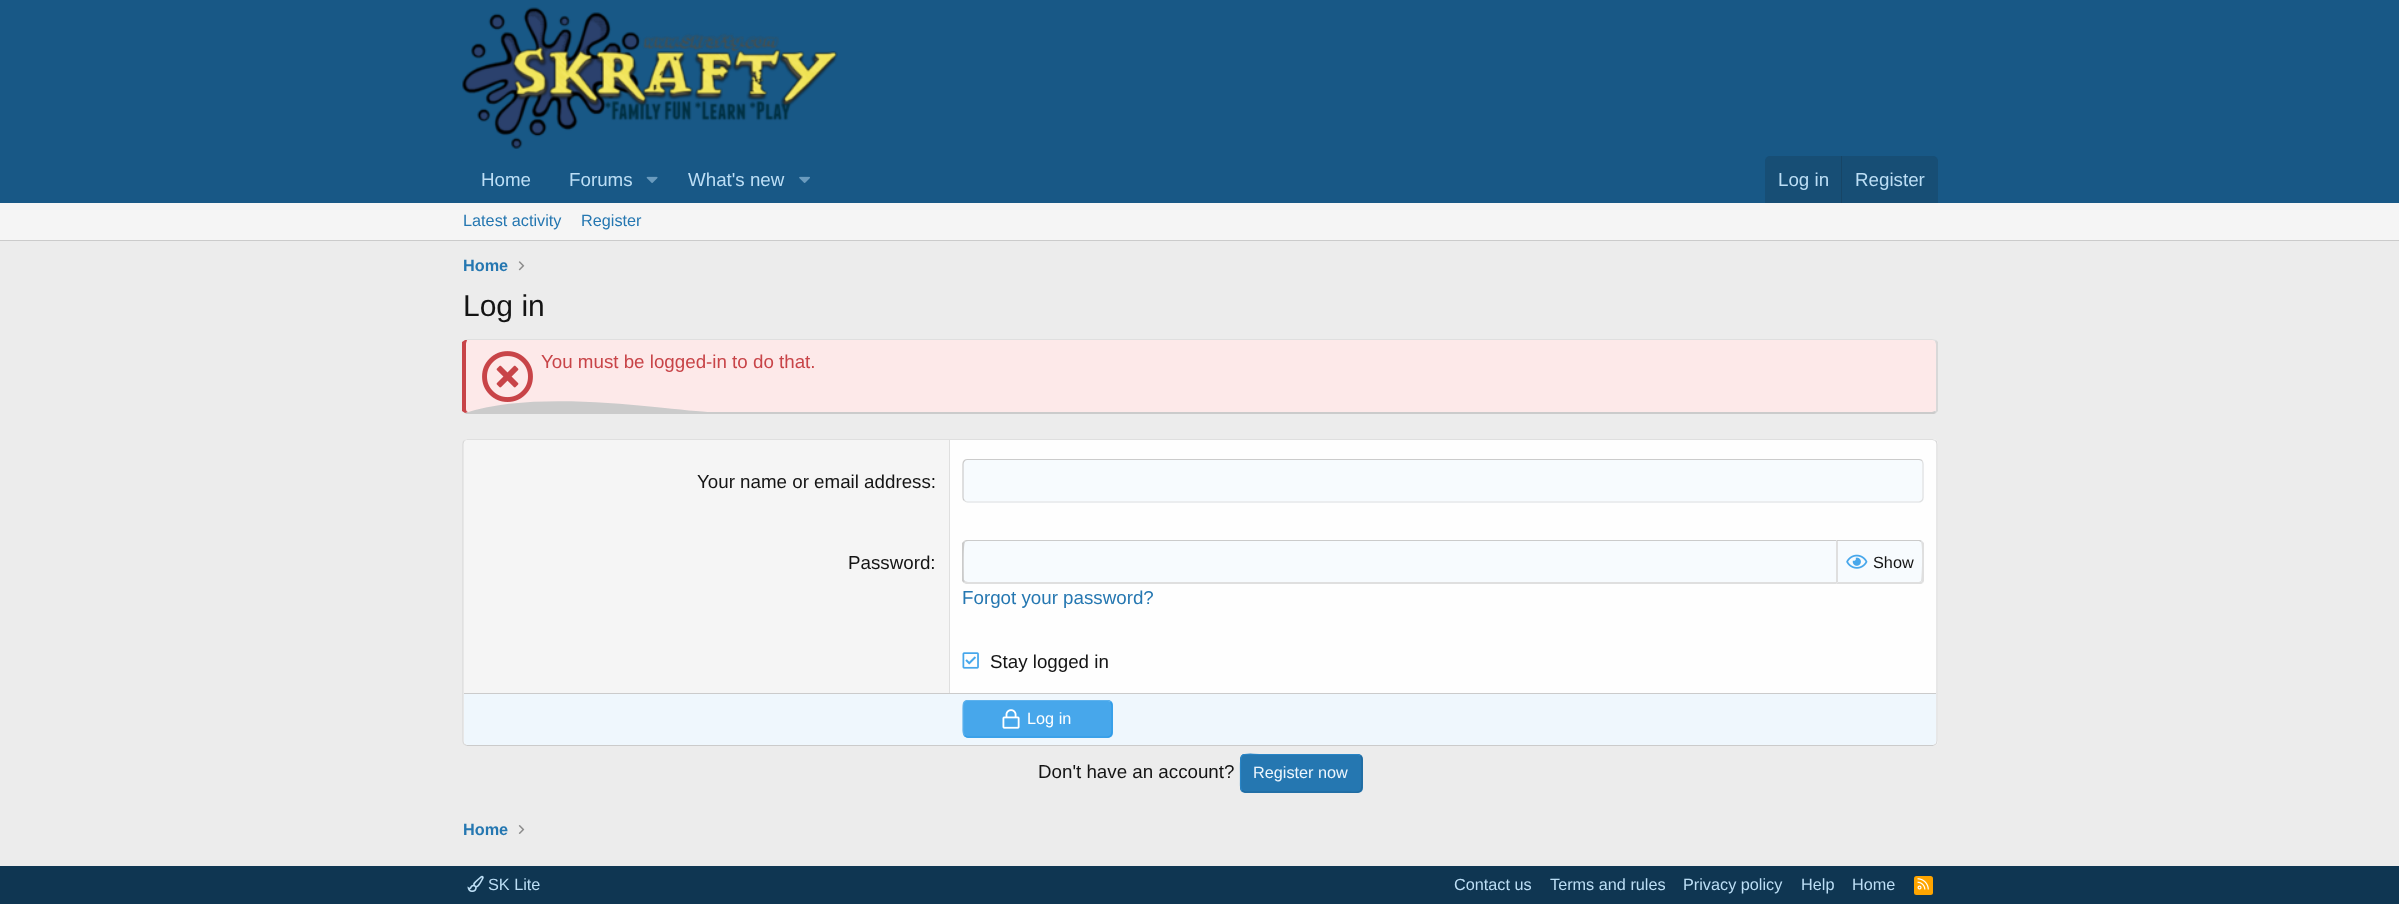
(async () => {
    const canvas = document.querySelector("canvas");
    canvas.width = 2399;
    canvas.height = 904;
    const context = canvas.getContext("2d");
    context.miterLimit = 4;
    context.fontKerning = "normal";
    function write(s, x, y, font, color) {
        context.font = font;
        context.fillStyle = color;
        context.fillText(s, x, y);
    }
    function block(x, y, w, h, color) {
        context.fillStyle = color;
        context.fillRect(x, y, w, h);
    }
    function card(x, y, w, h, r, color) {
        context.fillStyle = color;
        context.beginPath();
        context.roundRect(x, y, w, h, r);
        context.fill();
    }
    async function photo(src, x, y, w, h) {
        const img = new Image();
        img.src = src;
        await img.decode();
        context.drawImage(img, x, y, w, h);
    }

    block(0, 0, 2399, 904, "rgb(236, 236, 236)");
    block(0, 0, 2399, 203, "rgb(24, 88, 134)");
    await photo("media/1.png", 462, 7, 376, 142);
    write("Home", 481, 186, "18.75px Liberation Sans", "rgb(188, 222, 245)");
    write("Forums", 569, 186, "18.75px Liberation Sans", "rgb(188, 222, 245)");
    await photo("media/2.png", 646, 176, 12, 7);
    write("What's new", 688, 186, "18.75px Liberation Sans", "rgb(188, 222, 245)");
    await photo("media/3.png", 799, 176, 11, 7);
    context.fillStyle = "rgb(23, 78, 117)";
    context.beginPath();
    context.roundRect(1765, 156, 173, 47, [5, 5, 0, 0]);
    context.fill();
    write("Log in", 1778, 186, "18.75px Liberation Sans", "rgb(188, 222, 245)");
    block(1841, 156, 1, 47, "rgb(23, 69, 102)");
    write("Register", 1855, 186, "18.75px Liberation Sans", "rgb(188, 222, 245)");
    block(0, 203, 2399, 37, "rgb(245, 245, 245)");
    block(0, 240, 2399, 1, "rgb(203, 203, 203)");
    write("Latest activity", 463, 226, "16.25px Liberation Sans", "rgb(37, 119, 177)");
    write("Register", 581, 226, "16.25px Liberation Sans", "rgb(37, 119, 177)");
    write("Home", 463, 271, "bold 16.25px Liberation Sans", "rgb(37, 119, 177)");
    await photo("media/4.png", 518, 261, 7, 10);
    write("Log in", 463, 316, "30px Liberation Sans", "rgb(20, 20, 20)");
    context.fillStyle = "rgb(253, 233, 233)";
    context.beginPath();
    context.moveTo(468, 340);
    context.lineTo(1932, 340);
    context.bezierCurveTo(1935, 340, 1936, 342, 1936, 344);
    context.lineTo(1936, 409);
    context.bezierCurveTo(1936, 411, 1935, 412, 1932, 412);
    context.lineTo(468, 412);
    context.bezierCurveTo(467, 412, 466, 411, 466, 409);
    context.lineTo(466, 344);
    context.bezierCurveTo(466, 342, 467, 340, 468, 340);
    context.closePath();
    context.fill();
    context.fillStyle = "rgb(223, 223, 223)";
    context.beginPath();
    context.moveTo(468, 339);
    context.lineTo(465, 340);
    context.lineTo(467, 340);
    context.lineTo(1932, 340);
    context.bezierCurveTo(1933, 340, 1934, 340, 1935, 341);
    context.lineTo(1936, 340);
    context.lineTo(1932, 339);
    context.closePath();
    context.fill();
    context.fillStyle = "rgb(216, 216, 216)";
    context.beginPath();
    context.moveTo(1936, 340);
    context.lineTo(1938, 342);
    context.lineTo(1938, 411);
    context.lineTo(1936, 413);
    context.lineTo(1935, 411);
    context.lineTo(1936, 411);
    context.lineTo(1936, 344);
    context.lineTo(1935, 341);
    context.closePath();
    context.fill();
    context.fillStyle = "rgb(203, 203, 203)";
    context.beginPath();
    context.moveTo(466, 414);
    context.lineTo(465, 413);
    context.bezierCurveTo(542, 387, 681, 412, 712, 412);
    context.lineTo(1932, 412);
    context.lineTo(1935, 411);
    context.lineTo(1936, 413);
    context.lineTo(1934, 414);
    context.closePath();
    context.fill();
    context.fillStyle = "rgb(200, 68, 72)";
    context.beginPath();
    context.moveTo(462, 342);
    context.lineTo(465, 340);
    context.lineTo(467, 340);
    context.bezierCurveTo(467, 341, 466, 342, 466, 344);
    context.lineTo(466, 409);
    context.bezierCurveTo(466, 411, 467, 412, 468, 412);
    context.lineTo(465, 413);
    context.lineTo(462, 411);
    context.closePath();
    context.fill();
    await photo("media/5.png", 482, 351, 51, 51);
    write("You must be logged-in to do that.", 541, 368, "18.75px Liberation Sans", "rgb(200, 68, 72)");
    card(463, 439, 1475, 307, 5, "rgb(254, 254, 254)");
    context.beginPath();
    context.moveTo(464.5, 440.5);
    context.lineTo(467.5, 439.5);
    context.lineTo(1932.5, 439.5);
    context.lineTo(1935.5, 440.5);
    context.strokeStyle = "rgb(223, 223, 223)";
    context.lineWidth = 1.2;
    context.stroke();
    context.beginPath();
    context.moveTo(1935.5, 440.5);
    context.bezierCurveTo(1936.5, 441.5, 1937, 442.5, 1937, 444);
    context.lineTo(1937, 741);
    context.bezierCurveTo(1937, 742.5, 1936.5, 743.5, 1935.5, 744.5);
    context.strokeStyle = "rgb(216, 216, 216)";
    context.stroke();
    context.beginPath();
    context.moveTo(1935.5, 744.5);
    context.lineTo(1932.5, 745.5);
    context.lineTo(467.5, 745.5);
    context.lineTo(464.5, 744.5);
    context.strokeStyle = "rgb(203, 203, 203)";
    context.stroke();
    context.beginPath();
    context.moveTo(464.5, 744.5);
    context.bezierCurveTo(463.5, 743.5, 463, 742.5, 463, 741);
    context.lineTo(463, 444);
    context.bezierCurveTo(463, 442.5, 463.5, 441.5, 464.5, 440.5);
    context.strokeStyle = "rgb(216, 216, 216)";
    context.stroke();
    context.fillStyle = "rgb(245, 245, 245)";
    context.beginPath();
    context.roundRect(464, 440, 486, 81, [4, 0, 0, 0]);
    context.fill();
    block(949, 440, 1, 253, "rgb(223, 223, 223)");
    write("Your name or email address:", 697, 488, "18.75px Liberation Sans", "rgb(20, 20, 20)");
    card(963, 459, 961, 44, 5, "rgb(247, 251, 254)");
    context.beginPath();
    context.moveTo(1922, 460.5);
    context.bezierCurveTo(1922.5, 461.5, 1923, 462.5, 1923, 464);
    context.lineTo(1923, 497.5);
    context.bezierCurveTo(1923, 498.5, 1922.5, 500, 1922, 500.5);
    context.bezierCurveTo(1921, 501.5, 1920, 502, 1919, 502);
    context.lineTo(967.5, 502);
    context.bezierCurveTo(966.5, 502, 965, 501.5, 964.5, 500.5);
    context.strokeStyle = "rgb(223, 223, 223)";
    context.stroke();
    context.beginPath();
    context.moveTo(964.5, 500.5);
    context.bezierCurveTo(963.5, 500, 963, 498.5, 963, 497.5);
    context.lineTo(963, 464);
    context.bezierCurveTo(963, 462.5, 963.5, 461.5, 964.5, 460.5);
    context.bezierCurveTo(965, 460, 966.5, 459.5, 967.5, 459.5);
    context.lineTo(1919, 459.5);
    context.bezierCurveTo(1920, 459.5, 1921, 460, 1922, 460.5);
    context.strokeStyle = "rgb(203, 203, 203)";
    context.stroke();
    block(464, 521, 485, 172, "rgb(245, 245, 245)");
    write("Password:", 848, 569, "18.75px Liberation Sans", "rgb(20, 20, 20)");
    context.fillStyle = "rgb(247, 251, 254)";
    context.beginPath();
    context.roundRect(963, 540, 873, 44, [5, 0, 0, 5]);
    context.fill();
    context.fillStyle = "rgb(203, 203, 203)";
    context.beginPath();
    context.moveTo(968, 540);
    context.bezierCurveTo(966, 540, 965, 540, 964, 541);
    context.lineTo(965, 542);
    context.bezierCurveTo(965, 542, 966, 541, 968, 541);
    context.lineTo(1836, 541);
    context.lineTo(1836, 540);
    context.closePath();
    context.fill();
    context.fillStyle = "rgb(223, 223, 223)";
    context.beginPath();
    context.moveTo(966, 584);
    context.lineTo(964, 583);
    context.lineTo(965, 581);
    context.lineTo(968, 582);
    context.lineTo(1836, 582);
    context.lineTo(1836, 584);
    context.closePath();
    context.fill();
    context.fillStyle = "rgb(203, 203, 203)";
    context.beginPath();
    context.moveTo(962, 543);
    context.lineTo(964, 541);
    context.lineTo(965, 542);
    context.bezierCurveTo(963, 544, 964, 576, 964, 580);
    context.lineTo(965, 581);
    context.lineTo(964, 583);
    context.lineTo(962, 581);
    context.closePath();
    context.fill();
    context.fillStyle = "rgb(247, 251, 254)";
    context.beginPath();
    context.roundRect(1836, 540, 88, 44, [0, 5, 5, 0]);
    context.fill();
    context.fillStyle = "rgb(203, 203, 203)";
    context.beginPath();
    context.moveTo(1838, 541);
    context.lineTo(1919, 541);
    context.lineTo(1921, 542);
    context.lineTo(1922, 541);
    context.lineTo(1920, 540);
    context.lineTo(1836, 540);
    context.lineTo(1838, 542);
    context.closePath();
    context.fill();
    context.fillStyle = "rgb(223, 223, 223)";
    context.beginPath();
    context.moveTo(1924, 581);
    context.lineTo(1923, 583);
    context.lineTo(1921, 581);
    context.bezierCurveTo(1922, 580, 1923, 545, 1921, 542);
    context.lineTo(1922, 541);
    context.lineTo(1924, 543);
    context.closePath();
    context.fill();
    context.beginPath();
    context.moveTo(1923, 583);
    context.lineTo(1921, 584);
    context.lineTo(1836, 584);
    context.lineTo(1838, 582);
    context.lineTo(1919, 582);
    context.lineTo(1921, 581);
    context.closePath();
    context.fill();
    context.beginPath();
    context.moveTo(1836, 584);
    context.lineTo(1838, 582);
    context.lineTo(1838, 542);
    context.lineTo(1836, 540);
    context.closePath();
    context.fill();
    await photo("media/6.png", 1846, 554, 22, 15);
    write("Show", 1873, 568, "16.25px Liberation Sans", "rgb(20, 20, 20)");
    write("Forgot your password?", 962, 604, "18.75px Liberation Sans", "rgb(37, 119, 177)");
    await photo("media/7.png", 962, 652, 17, 17);
    write("Stay logged in", 990, 668, "18.75px Liberation Sans", "rgb(20, 20, 20)");
    context.fillStyle = "rgba(237, 246, 253, 0.9)";
    context.beginPath();
    context.roundRect(464, 693, 1472, 52, [0, 0, 4, 4]);
    context.fill();
    block(464, 693, 1472, 1, "rgb(203, 203, 203)");
    card(963, 700, 150, 38, 5, "rgb(71, 167, 235)");
    context.beginPath();
    context.moveTo(1110.5, 702);
    context.bezierCurveTo(1112.5, 704, 1112, 707, 1112, 709.5);
    context.lineTo(1112, 728);
    context.bezierCurveTo(1112, 731.5, 1112.5, 737, 1107.5, 737);
    context.lineTo(967, 737);
    context.lineTo(964.5, 735.5);
    context.strokeStyle = "rgb(48, 156, 232)";
    context.stroke();
    context.beginPath();
    context.moveTo(964.5, 735.5);
    context.bezierCurveTo(962.5, 733.5, 963, 730.5, 963, 728);
    context.lineTo(963, 709.5);
    context.bezierCurveTo(963, 706, 962.5, 700.5, 967.5, 700.5);
    context.lineTo(1108, 700.5);
    context.lineTo(1110.5, 702);
    context.strokeStyle = "rgb(94, 178, 237)";
    context.stroke();
    await photo("media/8.png", 1002, 709, 18, 20);
    write("Log in", 1027, 724, "16.25px Liberation Sans", "rgb(255, 255, 255)");
    write("Don't have an account?", 1038, 778, "18.75px Liberation Sans", "rgb(20, 20, 20)");
    card(1240, 754, 123, 39, 5, "rgb(37, 119, 177)");
    context.beginPath();
    context.moveTo(1360.5, 755.5);
    context.bezierCurveTo(1362.5, 757.5, 1362, 761, 1362, 763.5);
    context.lineTo(1362, 773);
    context.bezierCurveTo(1362, 796.5, 1364.5, 792, 1339, 792);
    context.lineTo(1245, 792);
    context.lineTo(1242, 790.5);
    context.strokeStyle = "rgb(33, 105, 156)";
    context.stroke();
    context.beginPath();
    context.moveTo(1242, 790.5);
    context.bezierCurveTo(1240, 788.5, 1240.5, 785, 1240.5, 782.5);
    context.lineTo(1240.5, 773);
    context.bezierCurveTo(1240.5, 750, 1238, 754.5, 1264, 754.5);
    context.lineTo(1357.5, 754.5);
    context.lineTo(1360.5, 755.5);
    context.strokeStyle = "rgb(41, 133, 198)";
    context.stroke();
    write("Register now", 1253, 778, "16.25px Liberation Sans", "rgb(237, 246, 253)");
    write("Home", 463, 835, "bold 16.25px Liberation Sans", "rgb(37, 119, 177)");
    await photo("media/9.png", 518, 825, 7, 9);
    block(0, 866, 2399, 38, "rgb(15, 54, 82)");
    await photo("media/10.png", 467, 875, 17, 17);
    write("SK Lite", 488, 890, "16.25px Liberation Sans", "rgb(188, 222, 245)");
    write("Contact us", 1454, 890, "16.25px Liberation Sans", "rgb(188, 222, 245)");
    write("Terms and rules", 1550, 890, "16.25px Liberation Sans", "rgb(188, 222, 245)");
    write("Privacy policy", 1683, 890, "16.25px Liberation Sans", "rgb(188, 222, 245)");
    write("Help", 1801, 890, "16.25px Liberation Sans", "rgb(188, 222, 245)");
    write("Home", 1852, 890, "16.25px Liberation Sans", "rgb(188, 222, 245)");
    card(1914, 876, 19, 19, 2.5, "rgb(255, 165, 0)");
    await photo("media/11.png", 1917, 878, 12, 12);
})();
